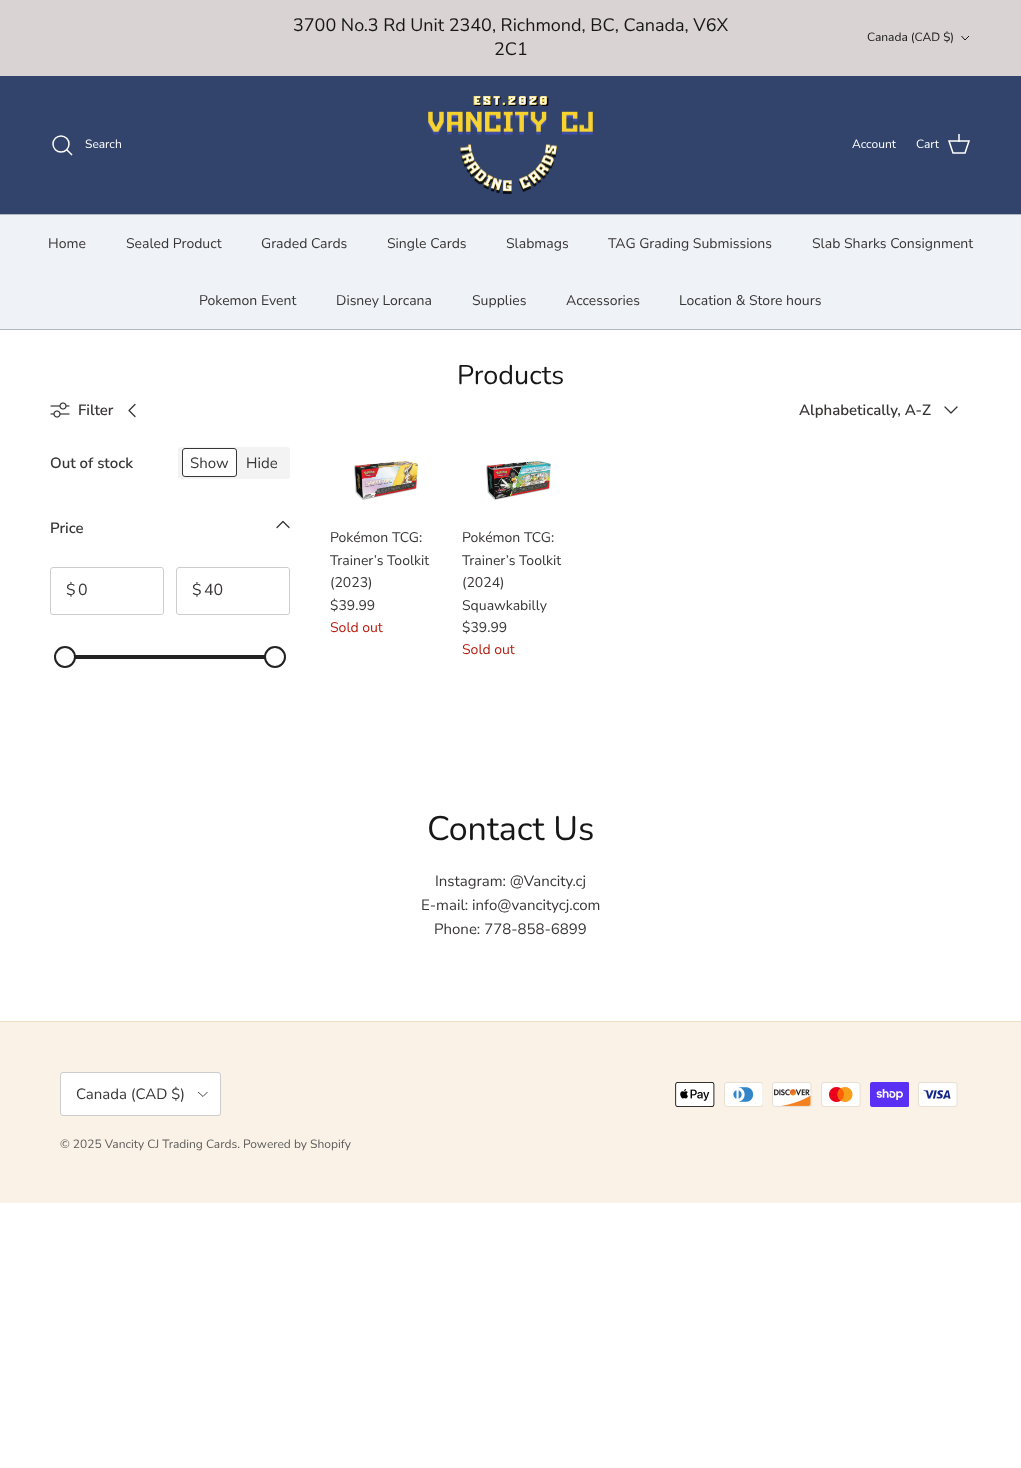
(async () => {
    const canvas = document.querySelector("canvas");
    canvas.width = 1021;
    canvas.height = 1468;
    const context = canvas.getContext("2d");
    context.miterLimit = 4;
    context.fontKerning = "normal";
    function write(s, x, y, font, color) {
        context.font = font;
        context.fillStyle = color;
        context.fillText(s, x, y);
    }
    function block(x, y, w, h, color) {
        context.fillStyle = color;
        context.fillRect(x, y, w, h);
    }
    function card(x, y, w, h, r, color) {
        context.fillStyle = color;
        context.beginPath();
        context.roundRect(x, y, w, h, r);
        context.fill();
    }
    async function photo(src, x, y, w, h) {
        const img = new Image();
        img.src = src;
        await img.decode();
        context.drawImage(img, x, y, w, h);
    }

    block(0, 0, 1021, 1468, "rgb(255, 255, 255)");
    block(0, 0, 1021, 76, "rgb(217, 211, 211)");
    write("3700 No.3 Rd Unit 2340, Richmond, BC, Canada, V6X", 293, 31, "18px Nunito Sans", "rgb(23, 23, 23)");
    write("2C1", 494, 55, "18px Nunito Sans", "rgb(23, 23, 23)");
    write("Canada (CAD $)", 867, 41, "12px Nunito Sans", "rgb(23, 23, 23)");
    context.beginPath();
    context.moveTo(969, 36);
    context.lineTo(965, 40);
    context.lineTo(961.5, 36);
    context.strokeStyle = "rgb(23, 23, 23)";
    context.stroke();
    block(0, 76, 1021, 138, "rgb(50, 67, 108)");
    block(0, 214, 1021, 1, "rgb(177, 183, 190)");
    context.beginPath();
    context.arc(61, 144, 8, 0, Math.PI * 2);
    context.strokeStyle = "rgb(255, 255, 255)";
    context.lineWidth = 1.5;
    context.stroke();
    write("Search", 85, 148, "12px Nunito Sans", "rgb(255, 255, 255)");
    context.beginPath();
    context.moveTo(67, 150);
    context.lineTo(71.5, 154.5);
    context.lineCap = "square";
    context.stroke();
    await photo("media/1.png", 428, 96, 165, 98);
    write("Account", 852, 148, "12px Nunito Sans", "rgb(255, 255, 255)");
    write("Cart", 916, 148, "12px Nunito Sans", "rgb(255, 255, 255)");
    context.beginPath();
    context.moveTo(949, 141);
    context.lineTo(969, 141);
    context.lineTo(965, 153);
    context.lineTo(953, 153);
    context.closePath();
    context.lineCap = "butt";
    context.stroke();
    block(958, 134, 2, 8, "rgba(255, 255, 255, 0.75)");
    block(0, 329, 1021, 1, "rgb(177, 183, 190)");
    block(0, 215, 1021, 114, "rgb(239, 243, 247)");
    write("Home", 48, 248, "14px Nunito Sans", "rgb(56, 53, 53)");
    write("Sealed Product", 126, 248, "14px Nunito Sans", "rgb(56, 53, 53)");
    write("Graded Cards", 261, 248, "14px Nunito Sans", "rgb(56, 53, 53)");
    write("Single Cards", 387, 248, "14px Nunito Sans", "rgb(56, 53, 53)");
    write("Slabmags", 506, 248, "14px Nunito Sans", "rgb(56, 53, 53)");
    write("TAG Grading Submissions", 608, 248, "14px Nunito Sans", "rgb(56, 53, 53)");
    write("Slab Sharks Consignment", 812, 248, "14px Nunito Sans", "rgb(56, 53, 53)");
    write("Pokemon Event", 199, 305, "14px Nunito Sans", "rgb(56, 53, 53)");
    write("Disney Lorcana", 336, 305, "14px Nunito Sans", "rgb(56, 53, 53)");
    write("Supplies", 472, 305, "14px Nunito Sans", "rgb(56, 53, 53)");
    write("Accessories", 566, 305, "14px Nunito Sans", "rgb(56, 53, 53)");
    write("Location & Store hours", 679, 305, "14px Nunito Sans", "rgb(56, 53, 53)");
    write("Products", 457, 384, "27px Nunito", "rgb(23, 23, 23)");
    await photo("media/2.png", 50, 402, 20, 16);
    write("Filter", 78, 415, "600 15px Nunito Sans", "rgb(56, 53, 53)");
    context.beginPath();
    context.moveTo(135, 404.5);
    context.lineTo(129, 410.5);
    context.lineTo(135, 416.5);
    context.strokeStyle = "rgb(56, 53, 53)";
    context.lineWidth = 1.3;
    context.lineCap = "round";
    context.lineJoin = "round";
    context.stroke();
    write("Alphabetically, A-Z", 799, 415, "600 15px Nunito Sans", "rgb(56, 53, 53)");
    context.beginPath();
    context.moveTo(945, 407);
    context.lineTo(951, 413);
    context.lineTo(957, 407);
    context.stroke();
    write("Out of stock", 50, 468, "600 15px Nunito Sans", "rgb(56, 53, 53)");
    card(178, 447, 112, 32, 3, "rgb(243, 243, 243)");
    context.fillStyle = "rgb(255, 255, 255)";
    context.beginPath();
    context.roundRect(182.5, 448.5, 54, 28, 2.5);
    context.fill();
    context.lineWidth = 1;
    context.lineJoin = "miter";
    context.stroke();
    write("Show", 190, 468, "15px Nunito Sans", "rgb(56, 53, 53)");
    write("Hide", 246, 468, "15px Nunito Sans", "rgb(56, 53, 53)");
    write("Price", 50, 533, "600 15px Nunito Sans", "rgb(56, 53, 53)");
    context.beginPath();
    context.moveTo(289, 527.5);
    context.lineTo(283, 521.5);
    context.lineTo(277, 527.5);
    context.lineWidth = 1.3;
    context.lineJoin = "round";
    context.stroke();
    context.beginPath();
    context.roundRect(50.5, 567.5, 113, 47, 2.5);
    context.strokeStyle = "rgb(205, 205, 205)";
    context.lineWidth = 1;
    context.lineJoin = "miter";
    context.stroke();
    write("$", 66, 595, "16px Nunito Sans", "rgb(56, 53, 53)");
    card(78, 568, 85, 46, 3, "rgb(255, 255, 255)");
    write("0", 78, 595, "16px Nunito Sans", "rgb(56, 53, 53)");
    context.beginPath();
    context.roundRect(176.5, 567.5, 113, 47, 2.5);
    context.stroke();
    write("$", 192, 595, "16px Nunito Sans", "rgb(56, 53, 53)");
    card(204, 568, 85, 46, 3, "rgb(255, 255, 255)");
    write("40", 204, 595, "16px Nunito Sans", "rgb(56, 53, 53)");
    block(75, 655, 190, 4, "rgb(34, 34, 34)");
    context.fillStyle = "rgb(255, 255, 255)";
    context.beginPath();
    context.arc(65, 657, 10, 0, Math.PI * 2);
    context.fill();
    context.strokeStyle = "rgb(34, 34, 34)";
    context.lineWidth = 2;
    context.stroke();
    context.beginPath();
    context.arc(275, 657, 10, 0, Math.PI * 2);
    context.fill();
    context.stroke();
    await photo("media/3.png", 354, 460, 64, 40);
    write("Pokémon TCG:", 330, 542, "14px Nunito Sans", "rgb(56, 53, 53)");
    write("Trainer’s Toolkit", 330, 565, "14px Nunito Sans", "rgb(56, 53, 53)");
    write("(2023)", 330, 587, "14px Nunito Sans", "rgb(56, 53, 53)");
    write("$39.99", 330, 610, "14px Nunito Sans", "rgb(56, 53, 53)");
    write("Sold out", 330, 632, "14px Nunito Sans", "rgb(182, 29, 15)");
    await photo("media/4.png", 486, 460, 65, 40);
    write("Pokémon TCG:", 462, 542, "14px Nunito Sans", "rgb(56, 53, 53)");
    write("Trainer’s Toolkit", 462, 565, "14px Nunito Sans", "rgb(56, 53, 53)");
    write("(2024)", 462, 587, "14px Nunito Sans", "rgb(56, 53, 53)");
    write("Squawkabilly", 462, 610, "14px Nunito Sans", "rgb(56, 53, 53)");
    write("$39.99", 462, 632, "14px Nunito Sans", "rgb(56, 53, 53)");
    write("Sold out", 462, 654, "14px Nunito Sans", "rgb(182, 29, 15)");
    write("Contact Us", 427, 840, "34px Nunito", "rgb(23, 23, 23)");
    write("Instagram: @Vancity.cj", 435, 886, "15px Nunito Sans", "rgb(56, 53, 53)");
    write("E-mail: info@vancitycj.com", 421, 910, "15px Nunito Sans", "rgb(56, 53, 53)");
    write("Phone: 778-858-6899", 434, 934, "15px Nunito Sans", "rgb(56, 53, 53)");
    block(0, 1022, 1021, 181, "rgb(250, 242, 230)");
    block(0, 1021, 1021, 1, "rgb(239, 223, 199)");
    context.fillStyle = "rgb(255, 255, 255)";
    context.beginPath();
    context.roundRect(60.5, 1072.5, 160, 43, 2.5);
    context.fill();
    context.strokeStyle = "rgb(205, 205, 205)";
    context.lineWidth = 1;
    context.stroke();
    write("Canada (CAD $)", 76, 1099, "15px Nunito Sans", "rgb(56, 53, 53)");
    context.beginPath();
    context.moveTo(207.5, 1092);
    context.lineTo(203, 1096.5);
    context.lineTo(198, 1092);
    context.strokeStyle = "rgb(56, 53, 53)";
    context.lineWidth = 0.9;
    context.lineCap = "butt";
    context.stroke();
    write("© 2025 Vancity CJ Trading Cards. Powered by Shopify", 60, 1148, "12px Nunito Sans", "rgb(92, 92, 92)");
    await photo("media/5.png", 675, 1082, 40, 25);
    await photo("media/6.png", 724, 1082, 39, 25);
    await photo("media/7.png", 772, 1082, 40, 25);
    await photo("media/8.png", 821, 1082, 40, 25);
    await photo("media/9.png", 870, 1082, 39, 25);
    await photo("media/10.png", 918, 1082, 40, 25);
})();
